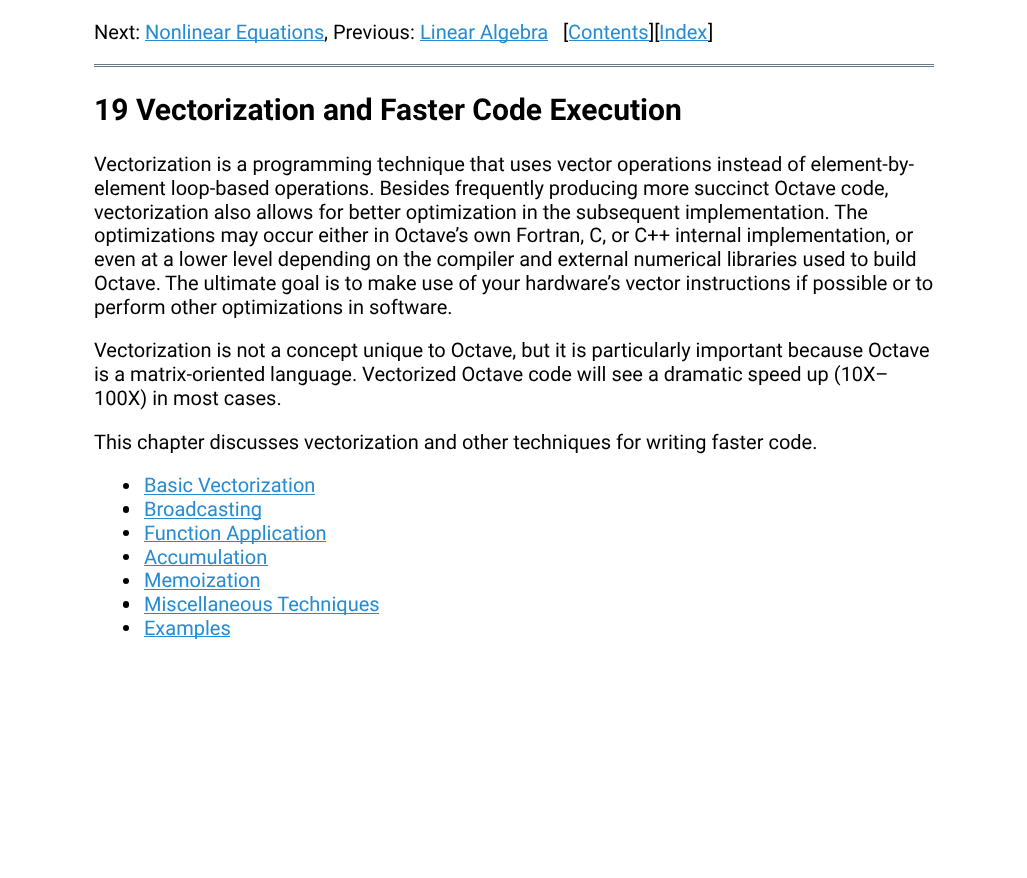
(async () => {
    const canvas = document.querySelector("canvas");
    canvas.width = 1027;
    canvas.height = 878;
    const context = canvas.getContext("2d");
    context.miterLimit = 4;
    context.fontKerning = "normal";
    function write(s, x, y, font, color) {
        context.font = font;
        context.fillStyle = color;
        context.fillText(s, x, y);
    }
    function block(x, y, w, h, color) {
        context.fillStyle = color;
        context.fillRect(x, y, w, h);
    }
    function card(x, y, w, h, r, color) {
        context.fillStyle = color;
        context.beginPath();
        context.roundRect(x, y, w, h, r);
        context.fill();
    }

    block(0, 0, 1027, 878, "rgb(255, 255, 255)");
    write("Next:", 94, 39, "20px Roboto", "rgb(0, 0, 0)");
    block(145, 40, 179, 1, "rgb(38, 139, 210)");
    write("Nonlinear Equations", 145, 39, "20px Roboto", "rgb(38, 139, 210)");
    write(", Previous:", 324, 39, "20px Roboto", "rgb(0, 0, 0)");
    block(420, 40, 128, 1, "rgb(38, 139, 210)");
    write("Linear Algebra", 420, 39, "20px Roboto", "rgb(38, 139, 210)");
    write("[", 563, 39, "20px Roboto", "rgb(0, 0, 0)");
    write("Contents", 568, 39, "20px Roboto", "rgb(38, 139, 210)");
    block(569, 40, 80, 1, "rgb(38, 139, 210)");
    write("][", 649, 39, "20px Roboto", "rgb(0, 0, 0)");
    write("Index", 659, 39, "20px Roboto", "rgb(38, 139, 210)");
    block(660, 40, 48, 1, "rgb(38, 139, 210)");
    write("]", 708, 39, "20px Roboto", "rgb(0, 0, 0)");
    block(94, 64, 840, 1, "rgb(101, 123, 131)");
    block(94, 66, 840, 1, "rgb(101, 123, 131)");
    write("19 Vectorization and Faster Code Execution", 94, 120, "bold 30px Roboto", "rgb(0, 0, 0)");
    write("Vectorization is a programming technique that uses vector operations instead of element-by-", 94, 171, "20px Roboto", "rgb(0, 0, 0)");
    write("element loop-based operations. Besides frequently producing more succinct Octave code,", 94, 195, "20px Roboto", "rgb(0, 0, 0)");
    write("vectorization also allows for better optimization in the subsequent implementation. The", 94, 219, "20px Roboto", "rgb(0, 0, 0)");
    write("optimizations may occur either in Octave’s own Fortran, C, or C++ internal implementation, or", 94, 242, "20px Roboto", "rgb(0, 0, 0)");
    write("even at a lower level depending on the compiler and external numerical libraries used to build", 94, 266, "20px Roboto", "rgb(0, 0, 0)");
    write("Octave.", 94, 290, "20px Roboto", "rgb(0, 0, 0)");
    write("The ultimate goal is to make use of your hardware’s vector instructions if possible or to", 165, 290, "20px Roboto", "rgb(0, 0, 0)");
    write("perform other optimizations in software.", 94, 314, "20px Roboto", "rgb(0, 0, 0)");
    write("Vectorization is not a concept unique to Octave, but it is particularly important because Octave", 94, 357, "20px Roboto", "rgb(0, 0, 0)");
    write("is a matrix-oriented language. Vectorized Octave code will see a dramatic speed up (10X–", 94, 381, "20px Roboto", "rgb(0, 0, 0)");
    write("100X) in most cases.", 94, 405, "20px Roboto", "rgb(0, 0, 0)");
    write("This chapter discusses vectorization and other techniques for writing faster code.", 94, 449, "20px Roboto", "rgb(0, 0, 0)");
    context.beginPath();
    context.arc(126, 486, 3, 0, Math.PI * 2);
    context.fill();
    write("Basic Vectorization", 144, 492, "20px Roboto", "rgb(38, 139, 210)");
    block(144, 494, 171, 1, "rgb(38, 139, 210)");
    card(123, 506, 6, 7, 3, "rgb(0, 0, 0)");
    block(144, 518, 117, 1, "rgb(38, 139, 210)");
    write("Broadcasting", 144, 516, "20px Roboto", "rgb(38, 139, 210)");
    context.fillStyle = "rgb(0, 0, 0)";
    context.beginPath();
    context.arc(126, 533, 3, 0, Math.PI * 2);
    context.fill();
    block(144, 541, 182, 1, "rgb(38, 139, 210)");
    write("Function Application", 144, 540, "20px Roboto", "rgb(38, 139, 210)");
    context.fillStyle = "rgb(0, 0, 0)";
    context.beginPath();
    context.arc(126, 557, 3, 0, Math.PI * 2);
    context.fill();
    write("Accumulation", 144, 564, "20px Roboto", "rgb(38, 139, 210)");
    block(144, 565, 124, 1, "rgb(38, 139, 210)");
    context.fillStyle = "rgb(0, 0, 0)";
    context.beginPath();
    context.arc(126, 581, 3, 0, Math.PI * 2);
    context.fill();
    write("Memoization", 144, 587, "20px Roboto", "rgb(38, 139, 210)");
    block(144, 589, 116, 1, "rgb(38, 139, 210)");
    card(123, 601, 6, 7, 3, "rgb(0, 0, 0)");
    block(144, 613, 235, 1, "rgb(38, 139, 210)");
    write("Miscellaneous Techniques", 144, 611, "20px Roboto", "rgb(38, 139, 210)");
    context.fillStyle = "rgb(0, 0, 0)";
    context.beginPath();
    context.arc(126, 628, 3, 0, Math.PI * 2);
    context.fill();
    block(144, 636, 86, 1, "rgb(38, 139, 210)");
    write("Examples", 144, 635, "20px Roboto", "rgb(38, 139, 210)");
})();
